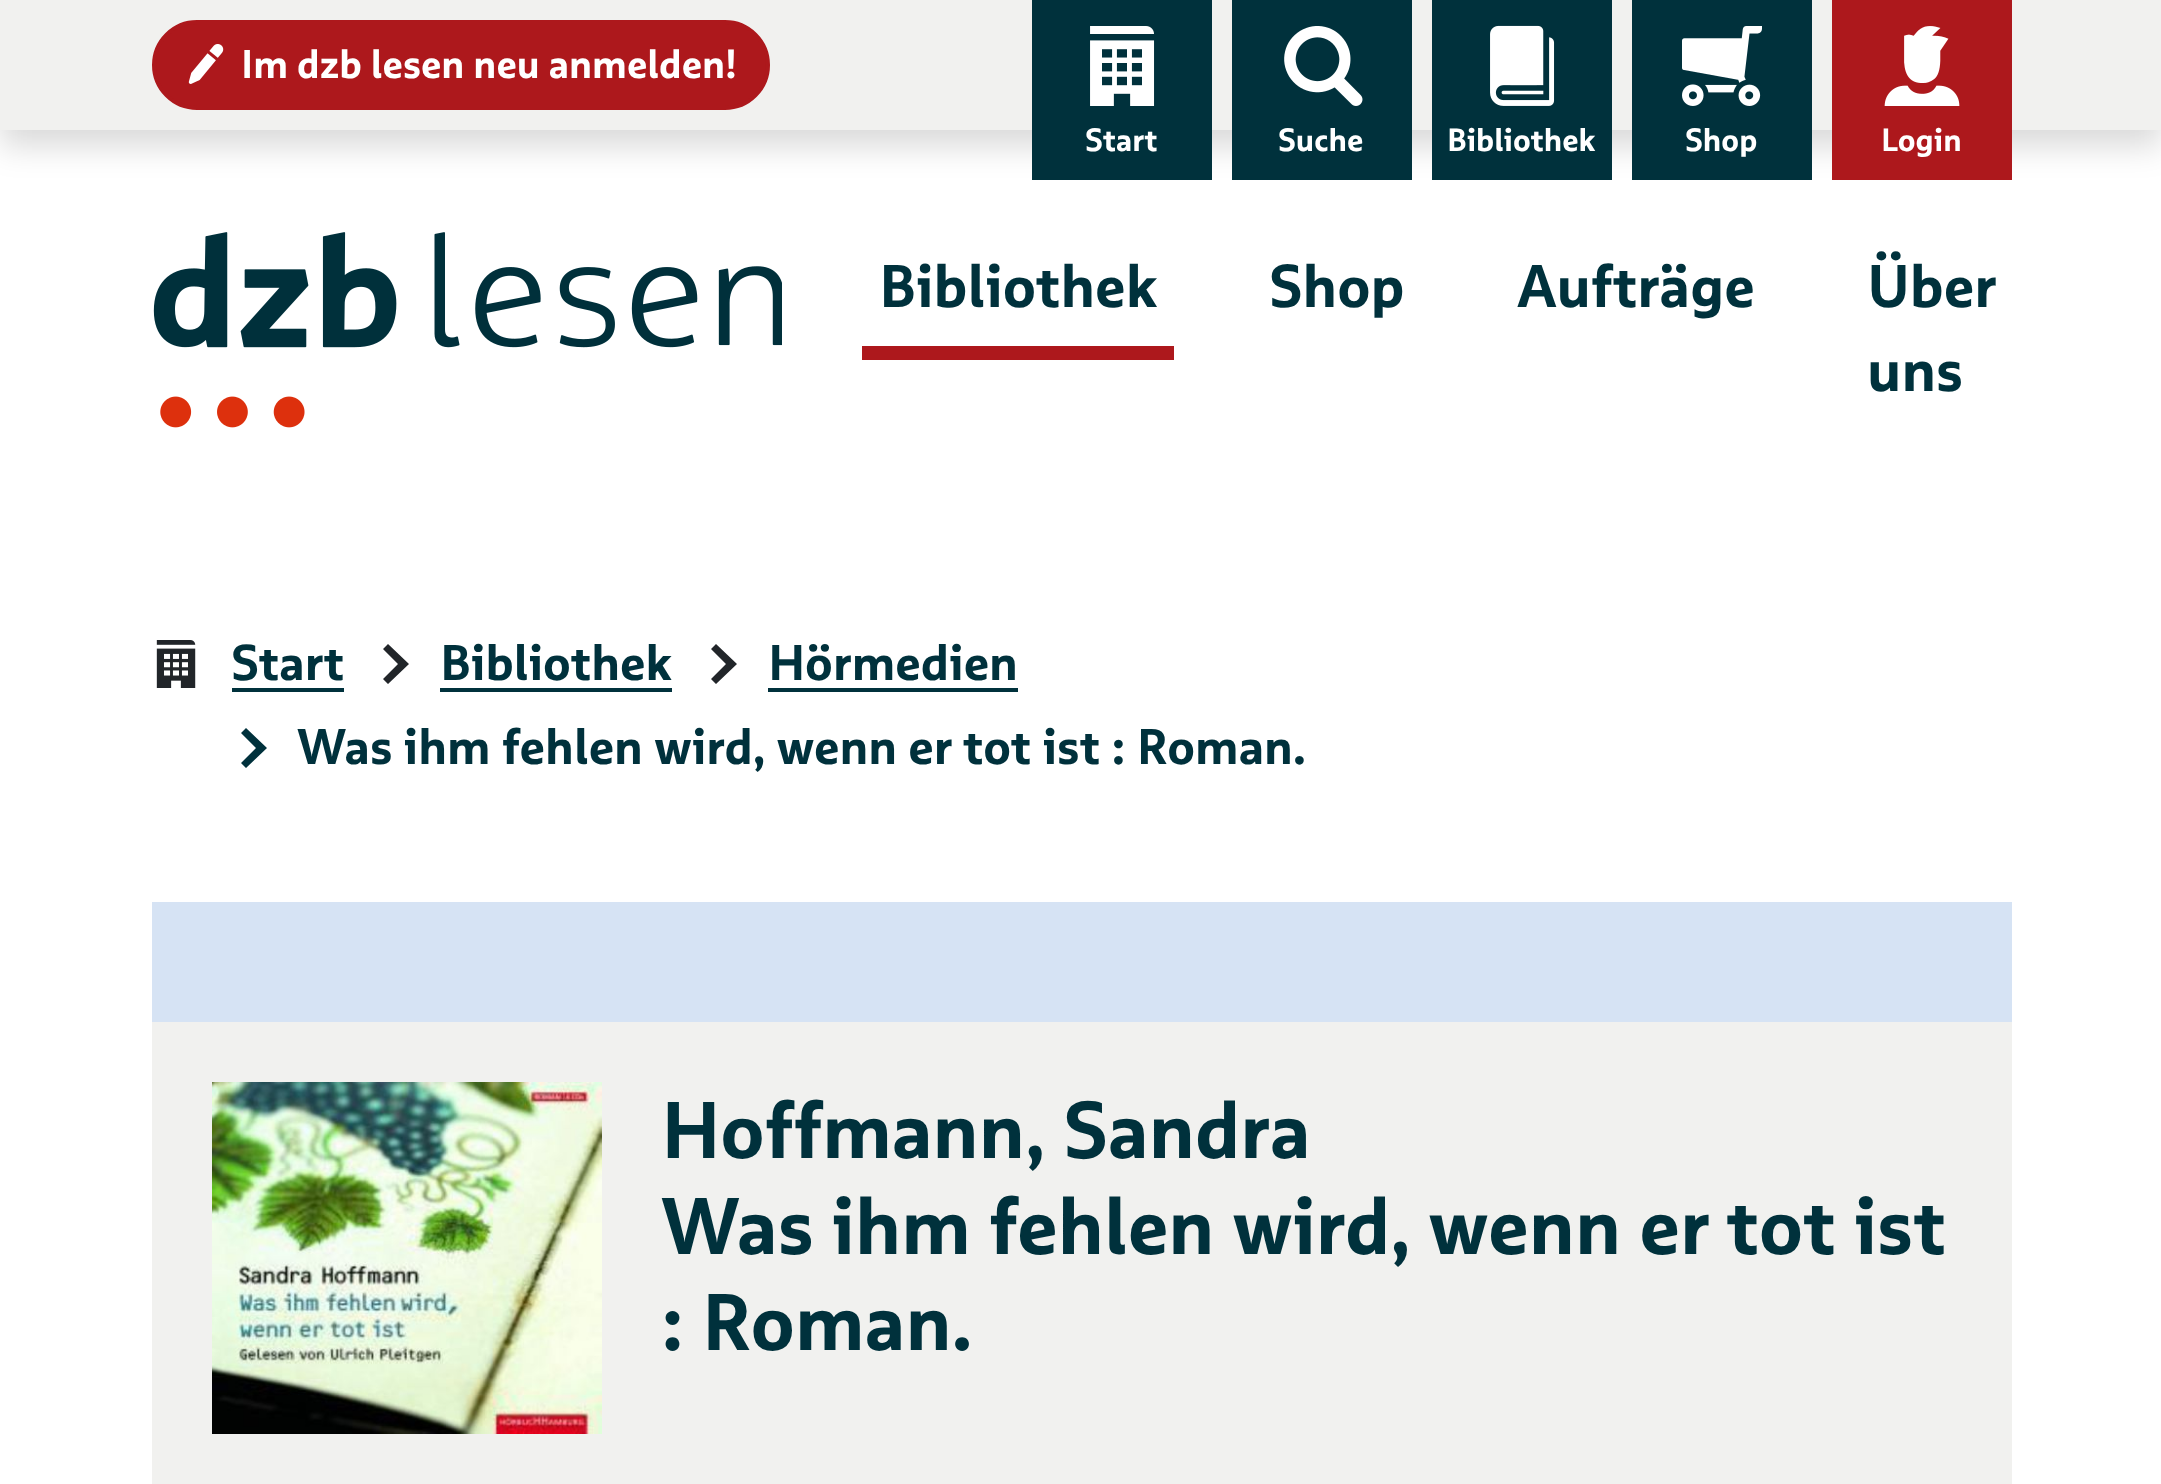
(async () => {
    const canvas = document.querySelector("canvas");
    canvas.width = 2161;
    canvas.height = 1484;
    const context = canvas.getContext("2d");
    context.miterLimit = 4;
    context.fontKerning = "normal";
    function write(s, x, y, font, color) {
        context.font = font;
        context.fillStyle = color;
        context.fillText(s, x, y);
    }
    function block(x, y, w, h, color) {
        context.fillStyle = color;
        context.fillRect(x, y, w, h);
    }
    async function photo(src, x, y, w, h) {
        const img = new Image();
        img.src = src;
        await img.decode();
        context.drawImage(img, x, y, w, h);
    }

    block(0, 0, 2161, 1484, "rgb(255, 255, 255)");
    context.fillStyle = "rgba(0, 0, 0, 0.15)";
    context.filter = "blur(16px)";
    context.beginPath();
    context.rect(0, 16, 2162, 130);
    context.fill();
    context.filter = "none";
    block(0, 0, 2161, 130, "rgb(241, 241, 239)");
    context.fillStyle = "rgb(173, 24, 28)";
    context.beginPath();
    context.roundRect(154, 22, 614, 86, 43);
    context.fill();
    context.strokeStyle = "rgb(173, 24, 28)";
    context.lineWidth = 4;
    context.stroke();
    await photo("media/1.png", 188, 44, 36, 40);
    write("Im dzb lesen neu anmelden!", 241, 78, "bold 40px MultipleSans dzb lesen", "rgb(255, 255, 255)");
    block(1032, 0, 180, 180, "rgb(0, 49, 60)");
    await photo("media/2.png", 1090, 26, 65, 80);
    write("Start", 1085, 151, "bold 32px MultipleSans dzb lesen", "rgb(255, 255, 255)");
    block(1232, 0, 180, 180, "rgb(0, 49, 60)");
    await photo("media/3.png", 1284, 26, 79, 80);
    write("Suche", 1278, 151, "bold 32px MultipleSans dzb lesen", "rgb(255, 255, 255)");
    block(1432, 0, 180, 180, "rgb(0, 49, 60)");
    await photo("media/4.png", 1490, 25, 65, 81);
    write("Bibliothek", 1447, 151, "bold 32px MultipleSans dzb lesen", "rgb(255, 255, 255)");
    block(1632, 0, 180, 180, "rgb(0, 49, 60)");
    await photo("media/5.png", 1682, 26, 80, 80);
    write("Shop", 1685, 151, "bold 32px MultipleSans dzb lesen", "rgb(255, 255, 255)");
    block(1832, 0, 180, 180, "rgb(173, 24, 28)");
    await photo("media/6.png", 1884, 26, 76, 80);
    write("Login", 1881, 151, "bold 32px MultipleSans dzb lesen", "rgb(255, 255, 255)");
    await photo("media/7.png", 153, 232, 629, 196);
    block(862, 346, 312, 14, "rgb(173, 24, 28)");
    write("Bibliothek", 879, 307, "bold 60px MultipleSans dzb lesen", "rgb(0, 49, 60)");
    write("Shop", 1269, 307, "bold 60px MultipleSans dzb lesen", "rgb(0, 49, 60)");
    write("Aufträge", 1517, 307, "bold 60px MultipleSans dzb lesen", "rgb(0, 49, 60)");
    write("Über", 1867, 307, "bold 60px MultipleSans dzb lesen", "rgb(0, 49, 60)");
    write("uns", 1867, 391, "bold 60px MultipleSans dzb lesen", "rgb(0, 49, 60)");
    await photo("media/8.png", 156, 640, 40, 48);
    block(232, 688, 112, 4, "rgb(0, 49, 60)");
    write("Start", 231, 680, "bold 50px MultipleSans dzb lesen", "rgb(0, 49, 60)");
    context.fillStyle = "rgb(33, 37, 41)";
    context.beginPath();
    context.moveTo(388, 684);
    context.lineTo(383, 679);
    context.lineTo(398, 664);
    context.lineTo(383, 649);
    context.lineTo(388, 644);
    context.lineTo(409, 664);
    context.closePath();
    context.fill();
    block(440, 688, 232, 4, "rgb(0, 49, 60)");
    write("Bibliothek", 440, 680, "bold 50px MultipleSans dzb lesen", "rgb(0, 49, 60)");
    context.fillStyle = "rgb(33, 37, 41)";
    context.beginPath();
    context.moveTo(716, 684);
    context.lineTo(711, 679);
    context.lineTo(726, 664);
    context.lineTo(711, 649);
    context.lineTo(716, 644);
    context.lineTo(737, 664);
    context.closePath();
    context.fill();
    block(768, 688, 250, 4, "rgb(0, 49, 60)");
    write("Hörmedien", 768, 680, "bold 50px MultipleSans dzb lesen", "rgb(0, 49, 60)");
    context.beginPath();
    context.moveTo(246, 768);
    context.lineTo(241, 763);
    context.lineTo(256, 748);
    context.lineTo(241, 733);
    context.lineTo(246, 728);
    context.lineTo(267, 748);
    context.closePath();
    context.fill();
    write("Was ihm fehlen wird, wenn er tot ist : Roman.", 297, 764, "bold 50px MultipleSans dzb lesen", "rgb(0, 49, 60)");
    block(152, 1022, 1860, 462, "rgb(241, 241, 239)");
    block(152, 902, 1860, 120, "rgb(214, 227, 244)");
    await photo("media/9.png", 212, 1082, 390, 352);
    write("Hoffmann, Sandra", 661, 1158, "bold 80px MultipleSans dzb lesen", "rgb(0, 49, 60)");
    write("Was ihm fehlen wird, wenn er tot ist", 661, 1254, "bold 80px MultipleSans dzb lesen", "rgb(0, 49, 60)");
    write(": Roman.", 661, 1350, "bold 80px MultipleSans dzb lesen", "rgb(0, 49, 60)");
})();
